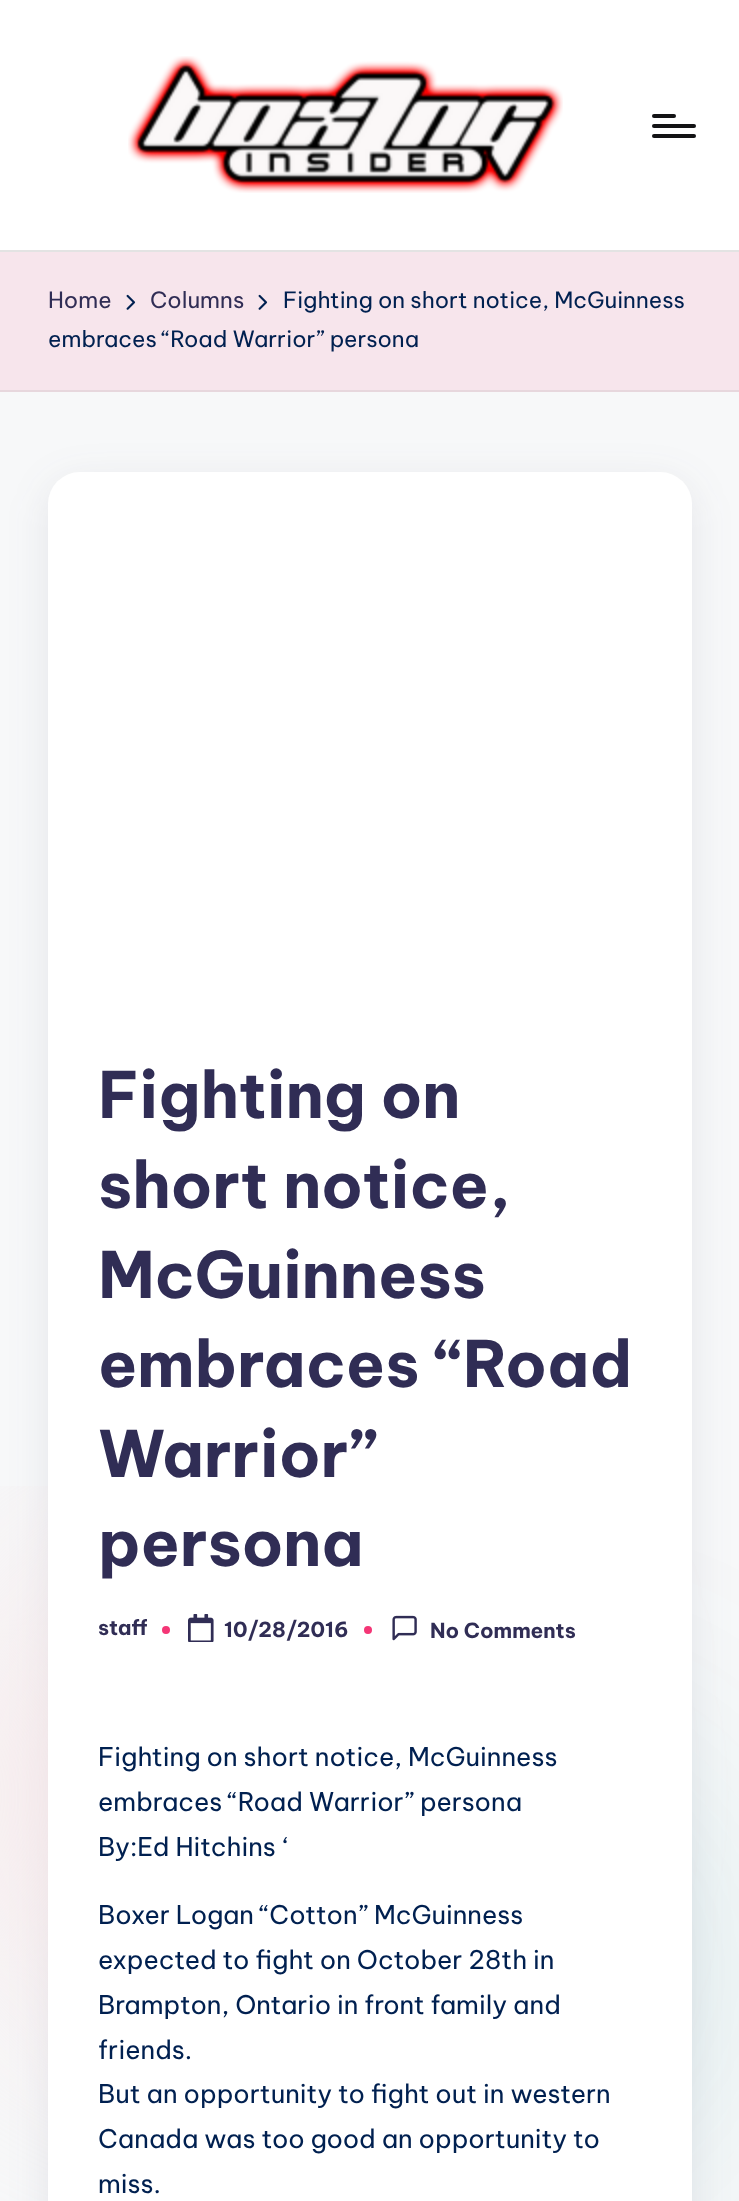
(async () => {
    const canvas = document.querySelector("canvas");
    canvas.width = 739;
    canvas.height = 2201;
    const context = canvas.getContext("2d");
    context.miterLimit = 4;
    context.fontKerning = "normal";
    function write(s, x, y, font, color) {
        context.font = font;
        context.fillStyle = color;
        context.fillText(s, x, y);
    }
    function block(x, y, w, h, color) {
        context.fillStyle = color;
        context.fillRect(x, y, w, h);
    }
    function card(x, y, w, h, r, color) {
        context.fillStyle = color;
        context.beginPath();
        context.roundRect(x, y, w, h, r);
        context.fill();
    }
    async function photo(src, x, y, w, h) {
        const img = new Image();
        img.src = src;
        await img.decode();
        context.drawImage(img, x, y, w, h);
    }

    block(0, 0, 739, 2201, "rgb(247, 248, 249)");
    block(0, 0, 739, 250, "rgb(255, 255, 255)");
    block(0, 250, 739, 2, "rgb(227, 227, 227)");
    await photo("media/1.png", 128, 56, 435, 137);
    card(652, 124, 44, 4, 2, "rgb(19, 19, 21)");
    card(652, 114, 24, 4, 2, "rgb(19, 19, 21)");
    card(652, 134, 44, 4, 2, "rgb(19, 19, 21)");
    block(0, 252, 739, 138, "rgb(247, 229, 236)");
    block(0, 390, 739, 2, "rgb(231, 215, 221)");
    write("Home", 48, 308, "22.4px Be Vietnam Pro", "rgb(48, 45, 85)");
    await photo("media/2.png", 126, 294, 10, 16);
    write("Columns", 150, 308, "22.4px Be Vietnam Pro", "rgb(48, 45, 85)");
    await photo("media/2.png", 258, 294, 10, 16);
    write("Fighting on short notice, McGuinness", 283, 308, "22.4px Be Vietnam Pro", "rgb(0, 32, 80)");
    write("embraces “Road Warrior” persona", 48, 347, "22.4px Be Vietnam Pro", "rgb(0, 32, 80)");
    context.fillStyle = "rgba(69, 67, 96, 0.1)";
    context.filter = "blur(20px)";
    context.beginPath();
    context.roundRect(48, 482, 644, 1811, 32);
    context.fill();
    context.filter = "none";
    context.save();
    context.beginPath();
    context.rect(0, 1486, 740, 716);
    context.clip();
    context.fillStyle = "rgb(247, 227, 229)";
    context.filter = "blur(128px)";
    context.beginPath();
    context.roundRect(0, 1566, 434, 460, 217);
    context.fill();
    context.filter = "none";
    context.restore();
    context.fillStyle = "rgba(4, 134, 139, 0.1)";
    context.filter = "blur(128px)";
    context.beginPath();
    context.roundRect(306, 1742, 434, 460, 217);
    context.fill();
    context.filter = "none";
    card(48, 472, 644, 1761, 32, "rgb(255, 255, 255)");
    write("Fighting on", 98, 1118, "bold 64px Be Vietnam Pro", "rgb(48, 45, 85)");
    write("short notice,", 98, 1208, "bold 64px Be Vietnam Pro", "rgb(48, 45, 85)");
    write("McGuinness", 98, 1298, "bold 64px Be Vietnam Pro", "rgb(48, 45, 85)");
    write("embraces “Road", 98, 1387, "bold 64px Be Vietnam Pro", "rgb(48, 45, 85)");
    write("Warrior”", 98, 1477, "bold 64px Be Vietnam Pro", "rgb(48, 45, 85)");
    write("persona", 98, 1566, "bold 64px Be Vietnam Pro", "rgb(48, 45, 85)");
    write("staff", 98, 1635, "bold 20.75px Be Vietnam Pro", "rgb(48, 45, 85)");
    context.fillStyle = "rgb(244, 54, 118)";
    context.beginPath();
    context.arc(166, 1630, 4, 0, Math.PI * 2);
    context.fill();
    await photo("media/3.png", 188, 1614, 26, 28);
    write("10/28/2016", 224, 1637, "bold 20.75px Be Vietnam Pro", "rgb(48, 45, 85)");
    context.fillStyle = "rgb(244, 54, 118)";
    context.beginPath();
    context.arc(368, 1630, 4, 0, Math.PI * 2);
    context.fill();
    await photo("media/4.png", 392, 1615, 25, 26);
    write("No Comments", 430, 1638, "bold 20.75px Be Vietnam Pro", "rgb(48, 45, 85)");
    write("Fighting on short notice, McGuinness", 98, 1766, "25.6px Be Vietnam Pro", "rgb(0, 32, 80)");
    write("embraces “Road Warrior” persona", 98, 1811, "25.6px Be Vietnam Pro", "rgb(0, 32, 80)");
    write("By:Ed Hitchins ‘", 98, 1856, "25.6px Be Vietnam Pro", "rgb(0, 32, 80)");
    write("Boxer Logan “Cotton” McGuinness", 98, 1924, "25.6px Be Vietnam Pro", "rgb(0, 32, 80)");
    write("expected to fight on October 28th in", 98, 1969, "25.6px Be Vietnam Pro", "rgb(0, 32, 80)");
    write("Brampton, Ontario in front family and", 98, 2014, "25.6px Be Vietnam Pro", "rgb(0, 32, 80)");
    write("friends.", 98, 2059, "25.6px Be Vietnam Pro", "rgb(0, 32, 80)");
    write("But an opportunity to fight out in western", 98, 2103, "25.6px Be Vietnam Pro", "rgb(0, 32, 80)");
    write("Canada was too good an opportunity to", 98, 2148, "25.6px Be Vietnam Pro", "rgb(0, 32, 80)");
    write("miss.", 98, 2193, "25.6px Be Vietnam Pro", "rgb(0, 32, 80)");
})();
